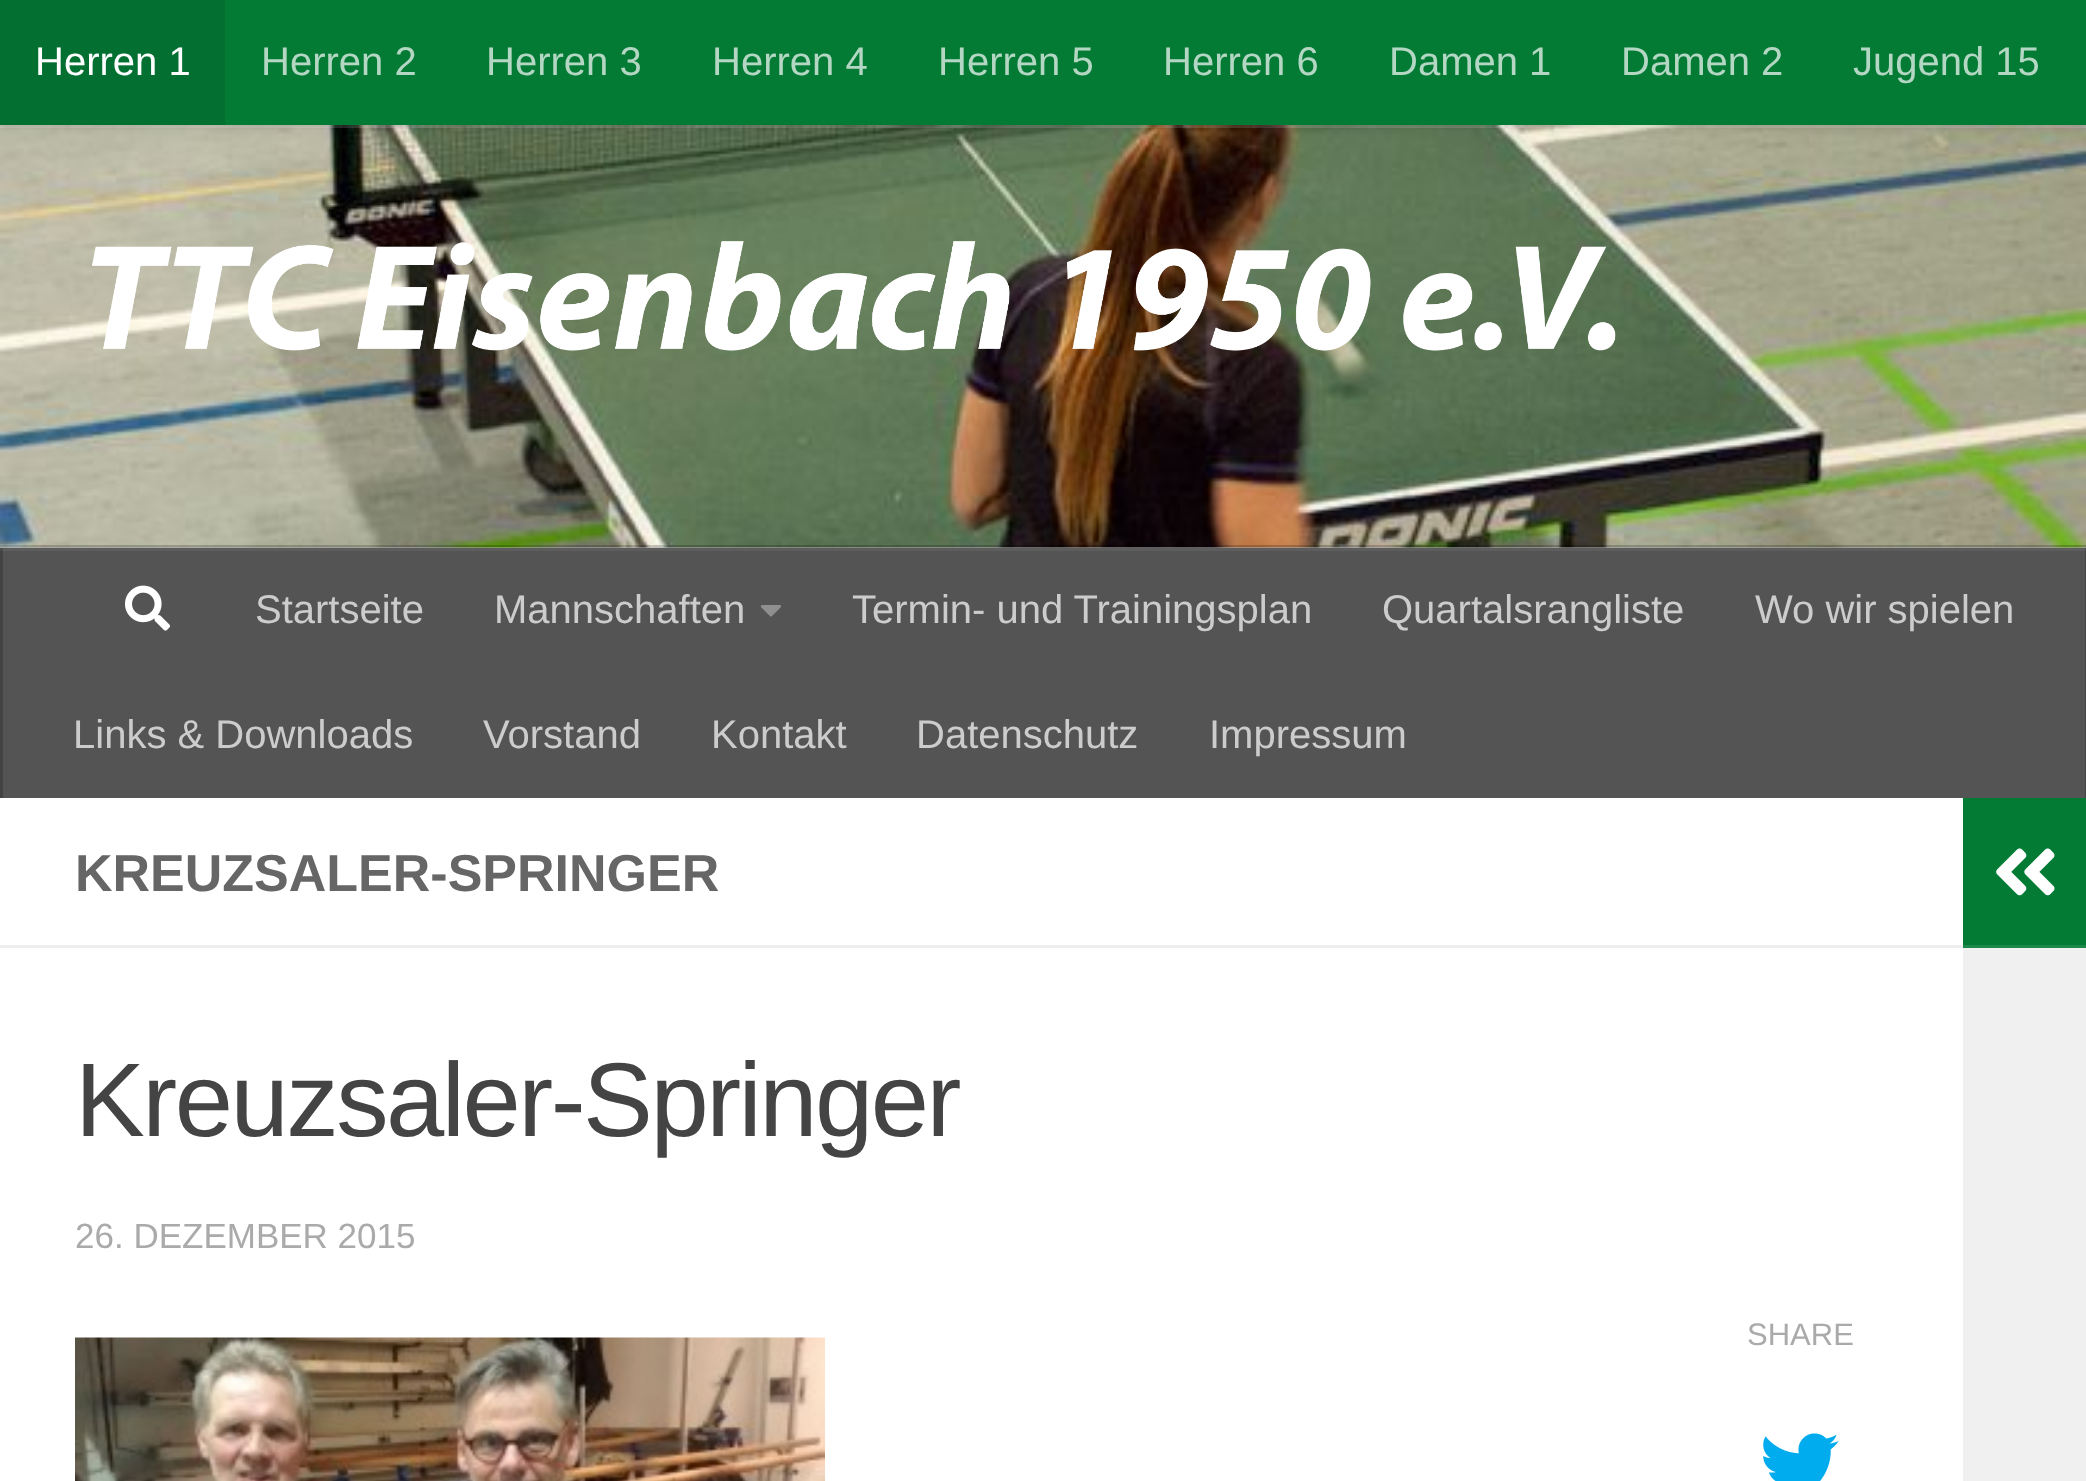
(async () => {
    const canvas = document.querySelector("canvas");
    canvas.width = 2086;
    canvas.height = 1481;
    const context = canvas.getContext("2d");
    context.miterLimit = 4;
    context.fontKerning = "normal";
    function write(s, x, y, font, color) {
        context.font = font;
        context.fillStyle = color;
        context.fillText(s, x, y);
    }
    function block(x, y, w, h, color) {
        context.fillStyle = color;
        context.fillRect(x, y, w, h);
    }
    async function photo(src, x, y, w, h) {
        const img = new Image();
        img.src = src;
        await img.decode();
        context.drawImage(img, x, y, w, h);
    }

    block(0, 0, 2086, 1481, "rgb(234, 234, 234)");
    await photo("media/1.png", 0, 125, 2086, 423);
    context.fillStyle = "rgba(255, 255, 255, 0.15)";
    context.beginPath();
    context.moveTo(0, 125);
    context.lineTo(0, 128);
    context.lineTo(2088, 128);
    context.lineTo(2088, 3);
    context.lineTo(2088, 125);
    context.closePath();
    context.fill();
    context.fillStyle = "rgba(0, 0, 0, 0.2)";
    context.filter = "blur(6px)";
    context.beginPath();
    context.rect(0, 0, 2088, 125);
    context.fill();
    context.filter = "none";
    block(225, 0, 1861, 125, "rgb(3, 123, 53)");
    block(0, 0, 225, 125, "rgb(3, 111, 48)");
    write("Herren 1", 35, 75, "40px Liberation Sans", "rgb(255, 255, 255)");
    write("Herren 2", 261, 75, "40px Liberation Sans", "rgb(179, 215, 194)");
    write("Herren 3", 486, 75, "40px Liberation Sans", "rgb(179, 215, 194)");
    write("Herren 4", 712, 75, "40px Liberation Sans", "rgb(179, 215, 194)");
    write("Herren 5", 938, 75, "40px Liberation Sans", "rgb(179, 215, 194)");
    write("Herren 6", 1163, 75, "40px Liberation Sans", "rgb(179, 215, 194)");
    write("Damen 1", 1389, 75, "40px Liberation Sans", "rgb(179, 215, 194)");
    write("Damen 2", 1621, 75, "40px Liberation Sans", "rgb(179, 215, 194)");
    write("Jugend 15", 1853, 75, "40px Liberation Sans", "rgb(179, 215, 194)");
    await photo("media/2.png", 92, 241, 1524, 110);
    context.fillStyle = "rgba(0, 0, 0, 0.2)";
    context.beginPath();
    context.moveTo(0, 545);
    context.lineTo(0, 548);
    context.lineTo(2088, 548);
    context.lineTo(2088, 795);
    context.lineTo(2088, 545);
    context.closePath();
    context.fill();
    block(3, 551, 2082, 247, "rgb(84, 84, 84)");
    block(0, 548, 2086, 3, "rgb(93, 93, 93)");
    block(2085, 548, 1, 250, "rgb(67, 67, 67)");
    block(2085, 548, 1, 3, "rgb(76, 76, 76)");
    block(0, 548, 3, 250, "rgb(67, 67, 67)");
    block(0, 548, 3, 3, "rgb(76, 76, 76)");
    await photo("media/3.png", 125, 585, 45, 46);
    write("Startseite", 255, 623, "40px Liberation Sans", "rgb(204, 204, 204)");
    write("Mannschaften", 494, 623, "40px Liberation Sans", "rgb(204, 204, 204)");
    await photo("media/4.png", 760, 605, 21, 12);
    write("Termin- und Trainingsplan", 852, 623, "40px Liberation Sans", "rgb(204, 204, 204)");
    write("Quartalsrangliste", 1382, 623, "40px Liberation Sans", "rgb(204, 204, 204)");
    write("Wo wir spielen", 1755, 623, "40px Liberation Sans", "rgb(204, 204, 204)");
    write("Links & Downloads", 73, 748, "40px Liberation Sans", "rgb(204, 204, 204)");
    write("Vorstand", 483, 748, "40px Liberation Sans", "rgb(204, 204, 204)");
    write("Kontakt", 711, 748, "40px Liberation Sans", "rgb(204, 204, 204)");
    write("Datenschutz", 916, 748, "40px Liberation Sans", "rgb(204, 204, 204)");
    write("Impressum", 1209, 748, "40px Liberation Sans", "rgb(204, 204, 204)");
    block(0, 798, 1963, 683, "rgb(255, 255, 255)");
    block(0, 945, 1963, 3, "rgb(238, 238, 238)");
    write("KREUZSALER-SPRINGER", 75, 891, "bold 52px Liberation Sans", "rgb(102, 102, 102)");
    context.letterSpacing = "-2.5px";
    write("Kreuzsaler-Springer", 75, 1136, "104.75px Liberation Sans", "rgb(68, 68, 68)");
    context.letterSpacing = "0px";
    write("26. DEZEMBER 2015", 75, 1248, "35px Liberation Sans", "rgb(170, 170, 170)");
    write("SHARE", 1747, 1345, "31px Liberation Sans", "rgb(170, 170, 170)");
    await photo("media/5.png", 1763, 1433, 76, 48);
    await photo("media/6.png", 75, 1337, 750, 144);
    block(1963, 798, 123, 147, "rgb(3, 123, 53)");
    block(1963, 945, 123, 3, "rgb(28, 136, 73)");
    await photo("media/7.png", 1996, 848, 59, 48);
    block(1963, 948, 123, 533, "rgb(240, 240, 240)");
})();
